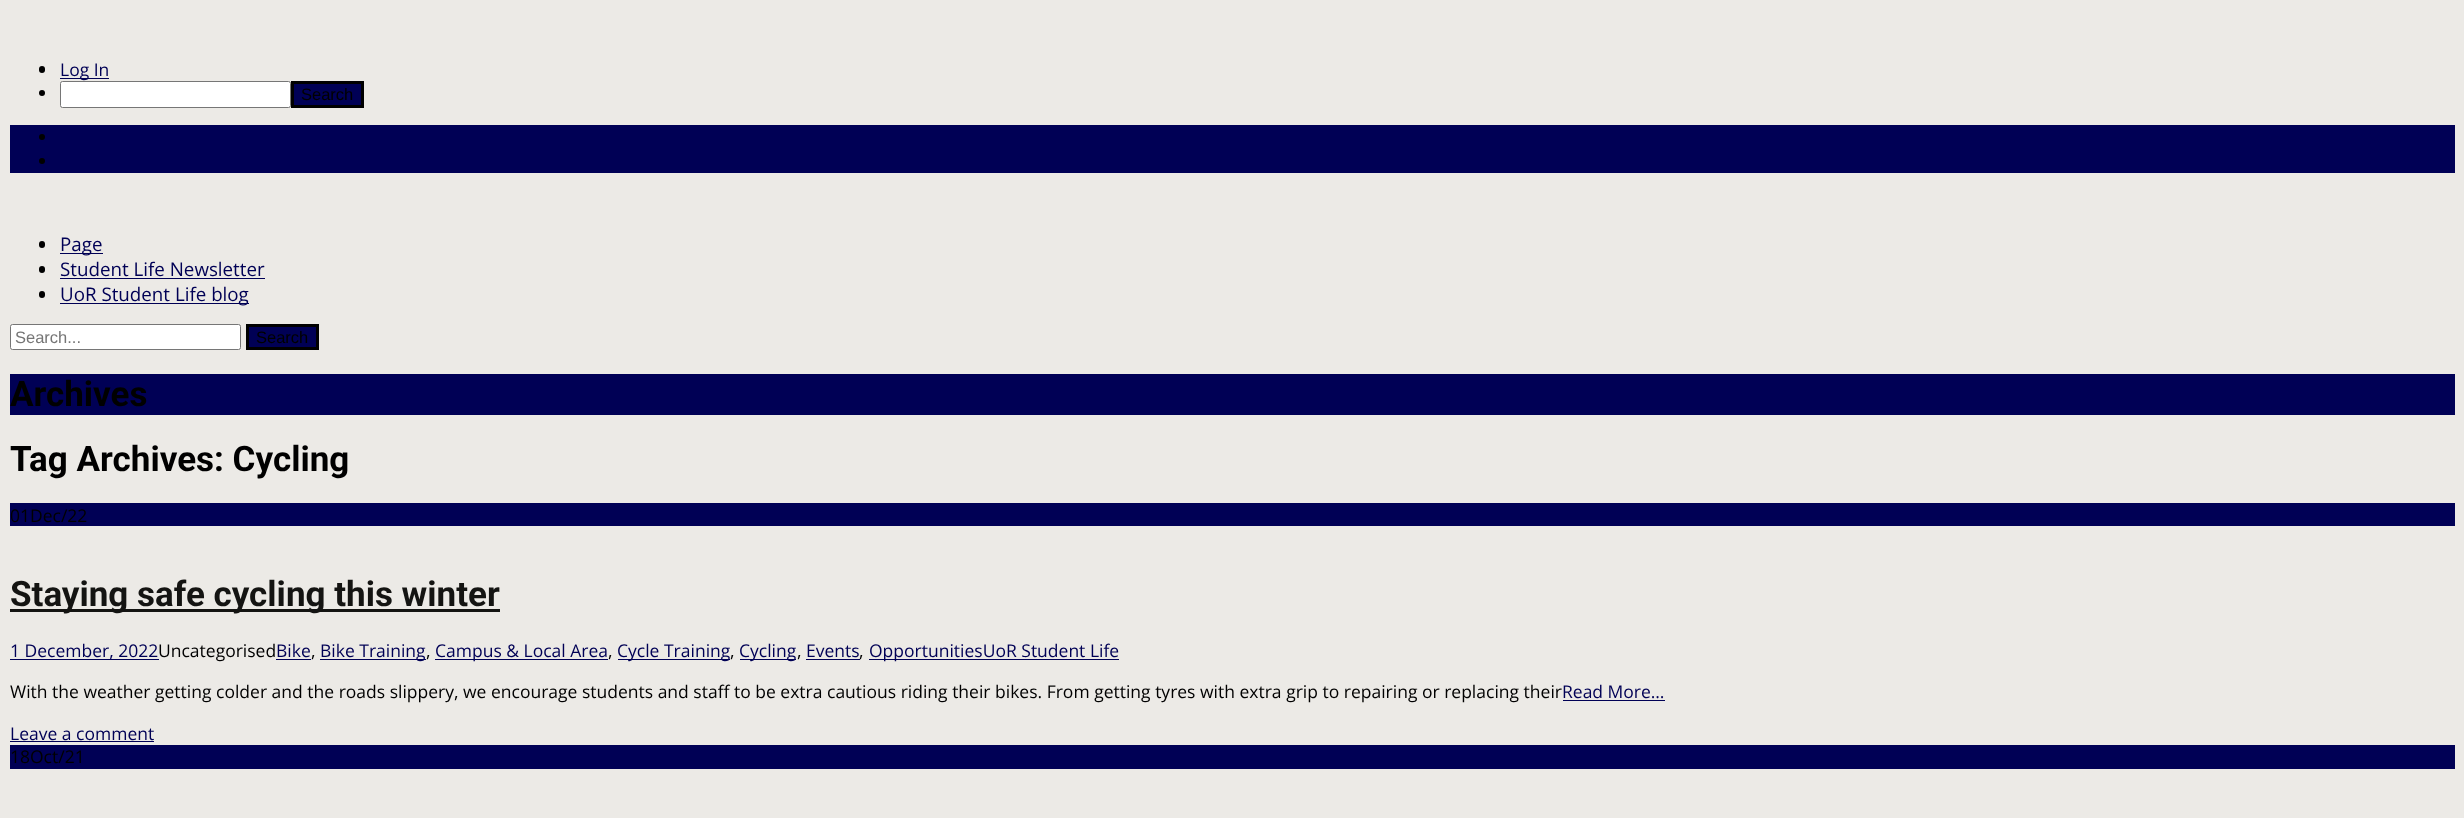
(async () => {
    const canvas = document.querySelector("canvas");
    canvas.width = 2464;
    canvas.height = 818;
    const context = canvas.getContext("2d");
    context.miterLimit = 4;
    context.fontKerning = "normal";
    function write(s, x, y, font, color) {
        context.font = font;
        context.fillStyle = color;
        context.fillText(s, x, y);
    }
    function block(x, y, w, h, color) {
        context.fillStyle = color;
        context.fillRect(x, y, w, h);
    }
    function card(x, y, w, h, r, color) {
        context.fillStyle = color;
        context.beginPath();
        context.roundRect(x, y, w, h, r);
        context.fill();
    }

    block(0, 0, 2464, 818, "rgb(236, 234, 230)");
    card(39, 66, 6, 7, 3, "rgb(0, 0, 0)");
    block(60, 78, 49, 1, "rgb(0, 0, 85)");
    write("Log In", 60, 76, "17.5px Open Sans", "rgb(0, 0, 85)");
    context.fillStyle = "rgb(0, 0, 0)";
    context.beginPath();
    context.arc(42, 93, 3, 0, Math.PI * 2);
    context.fill();
    context.fillStyle = "rgb(255, 255, 255)";
    context.beginPath();
    context.roundRect(60.5, 81.5, 230, 26, 2);
    context.fill();
    context.strokeStyle = "rgb(118, 118, 118)";
    context.stroke();
    context.fillStyle = "rgb(0, 0, 85)";
    context.beginPath();
    context.rect(292.5, 82.5, 70, 24);
    context.fill();
    context.strokeStyle = "rgb(0, 0, 0)";
    context.lineWidth = 3;
    context.stroke();
    write("Search", 301, 100, "16.5px Liberation Sans", "rgb(0, 0, 0)");
    block(10, 125, 2445, 48, "rgb(0, 0, 85)");
    context.fillStyle = "rgb(0, 0, 0)";
    context.beginPath();
    context.arc(42, 137, 3, 0, Math.PI * 2);
    context.fill();
    context.beginPath();
    context.arc(42, 161, 3, 0, Math.PI * 2);
    context.fill();
    card(39, 241, 6, 7, 3, "rgb(0, 0, 0)");
    block(60, 253, 43, 1, "rgb(0, 0, 85)");
    write("Page", 60, 251, "18.75px Open Sans", "rgb(0, 0, 85)");
    card(39, 266, 6, 7, 3, "rgb(0, 0, 0)");
    write("Student Life Newsletter", 60, 276, "18.75px Open Sans", "rgb(0, 0, 85)");
    block(60, 278, 205, 1, "rgb(0, 0, 85)");
    card(39, 291, 6, 7, 3, "rgb(0, 0, 0)");
    block(60, 303, 189, 1, "rgb(0, 0, 85)");
    write("UoR Student Life blog", 60, 301, "18.75px Open Sans", "rgb(0, 0, 85)");
    context.fillStyle = "rgb(255, 255, 255)";
    context.beginPath();
    context.roundRect(10.5, 324.5, 230, 25, 2);
    context.fill();
    context.strokeStyle = "rgb(118, 118, 118)";
    context.lineWidth = 1;
    context.stroke();
    write("Search...", 15, 343, "16.5px Liberation Sans", "rgb(117, 117, 117)");
    context.fillStyle = "rgb(0, 0, 85)";
    context.beginPath();
    context.rect(247.5, 325.5, 70, 23);
    context.fill();
    context.strokeStyle = "rgb(0, 0, 0)";
    context.lineWidth = 3;
    context.stroke();
    write("Search", 256, 343, "16.5px Liberation Sans", "rgb(0, 0, 0)");
    block(10, 374, 2445, 41, "rgb(0, 0, 85)");
    write("Archives", 10, 406, "bold 35px Roboto", "rgb(0, 0, 0)");
    write("Tag Archives: Cycling", 10, 471, "bold 35px Roboto", "rgb(0, 0, 0)");
    block(10, 503, 2445, 23, "rgb(0, 0, 85)");
    write("01Dec/22", 10, 522, "17.5px Open Sans", "rgb(0, 0, 0)");
    block(10, 609, 490, 3, "rgb(20, 20, 18)");
    write("Staying safe cycling this winter", 10, 606, "bold 35px Roboto", "rgb(20, 20, 18)");
    block(10, 659, 149, 1, "rgb(0, 0, 85)");
    write("1 December, 2022", 10, 657, "17.5px Open Sans", "rgb(0, 0, 85)");
    write("Uncategorised", 158, 657, "17.5px Open Sans", "rgb(0, 0, 0)");
    write("Bike", 276, 657, "17.5px Open Sans", "rgb(0, 0, 85)");
    write(",", 311, 657, "17.5px Open Sans", "rgb(0, 0, 0)");
    block(276, 659, 35, 1, "rgb(0, 0, 85)");
    block(320, 659, 106, 1, "rgb(0, 0, 85)");
    write("Bike Training", 320, 657, "17.5px Open Sans", "rgb(0, 0, 85)");
    write(",", 426, 657, "17.5px Open Sans", "rgb(0, 0, 0)");
    block(435, 659, 173, 1, "rgb(0, 0, 85)");
    write("Campus & Local Area", 435, 657, "17.5px Open Sans", "rgb(0, 0, 85)");
    write(",", 608, 657, "17.5px Open Sans", "rgb(0, 0, 0)");
    block(618, 659, 112, 1, "rgb(0, 0, 85)");
    write("Cycle Training", 617, 657, "17.5px Open Sans", "rgb(0, 0, 85)");
    write(",", 730, 657, "17.5px Open Sans", "rgb(0, 0, 0)");
    block(740, 659, 56, 1, "rgb(0, 0, 85)");
    write("Cycling", 739, 657, "17.5px Open Sans", "rgb(0, 0, 85)");
    write(",", 797, 657, "17.5px Open Sans", "rgb(0, 0, 0)");
    write("Events", 806, 657, "17.5px Open Sans", "rgb(0, 0, 85)");
    write(",", 859, 657, "17.5px Open Sans", "rgb(0, 0, 0)");
    block(806, 659, 54, 1, "rgb(0, 0, 85)");
    block(869, 659, 250, 1, "rgb(0, 0, 85)");
    write("OpportunitiesUoR Student Life", 869, 657, "17.5px Open Sans", "rgb(0, 0, 85)");
    write("With the weather getting colder and the roads slippery, we encourage students and staff to be extra cautious riding their bikes. From getting tyres with extra grip to repairing or replacing their", 10, 698, "17.5px Open Sans", "rgb(0, 0, 0)");
    write("Read More…", 1562, 698, "17.5px Open Sans", "rgb(0, 0, 85)");
    block(1563, 700, 102, 1, "rgb(0, 0, 85)");
    write("Leave a comment", 10, 740, "17.5px Open Sans", "rgb(0, 0, 85)");
    block(10, 741, 144, 1, "rgb(0, 0, 85)");
    block(10, 745, 2445, 24, "rgb(0, 0, 85)");
    write("18Oct/21", 10, 763, "17.5px Open Sans", "rgb(0, 0, 0)");
})();
